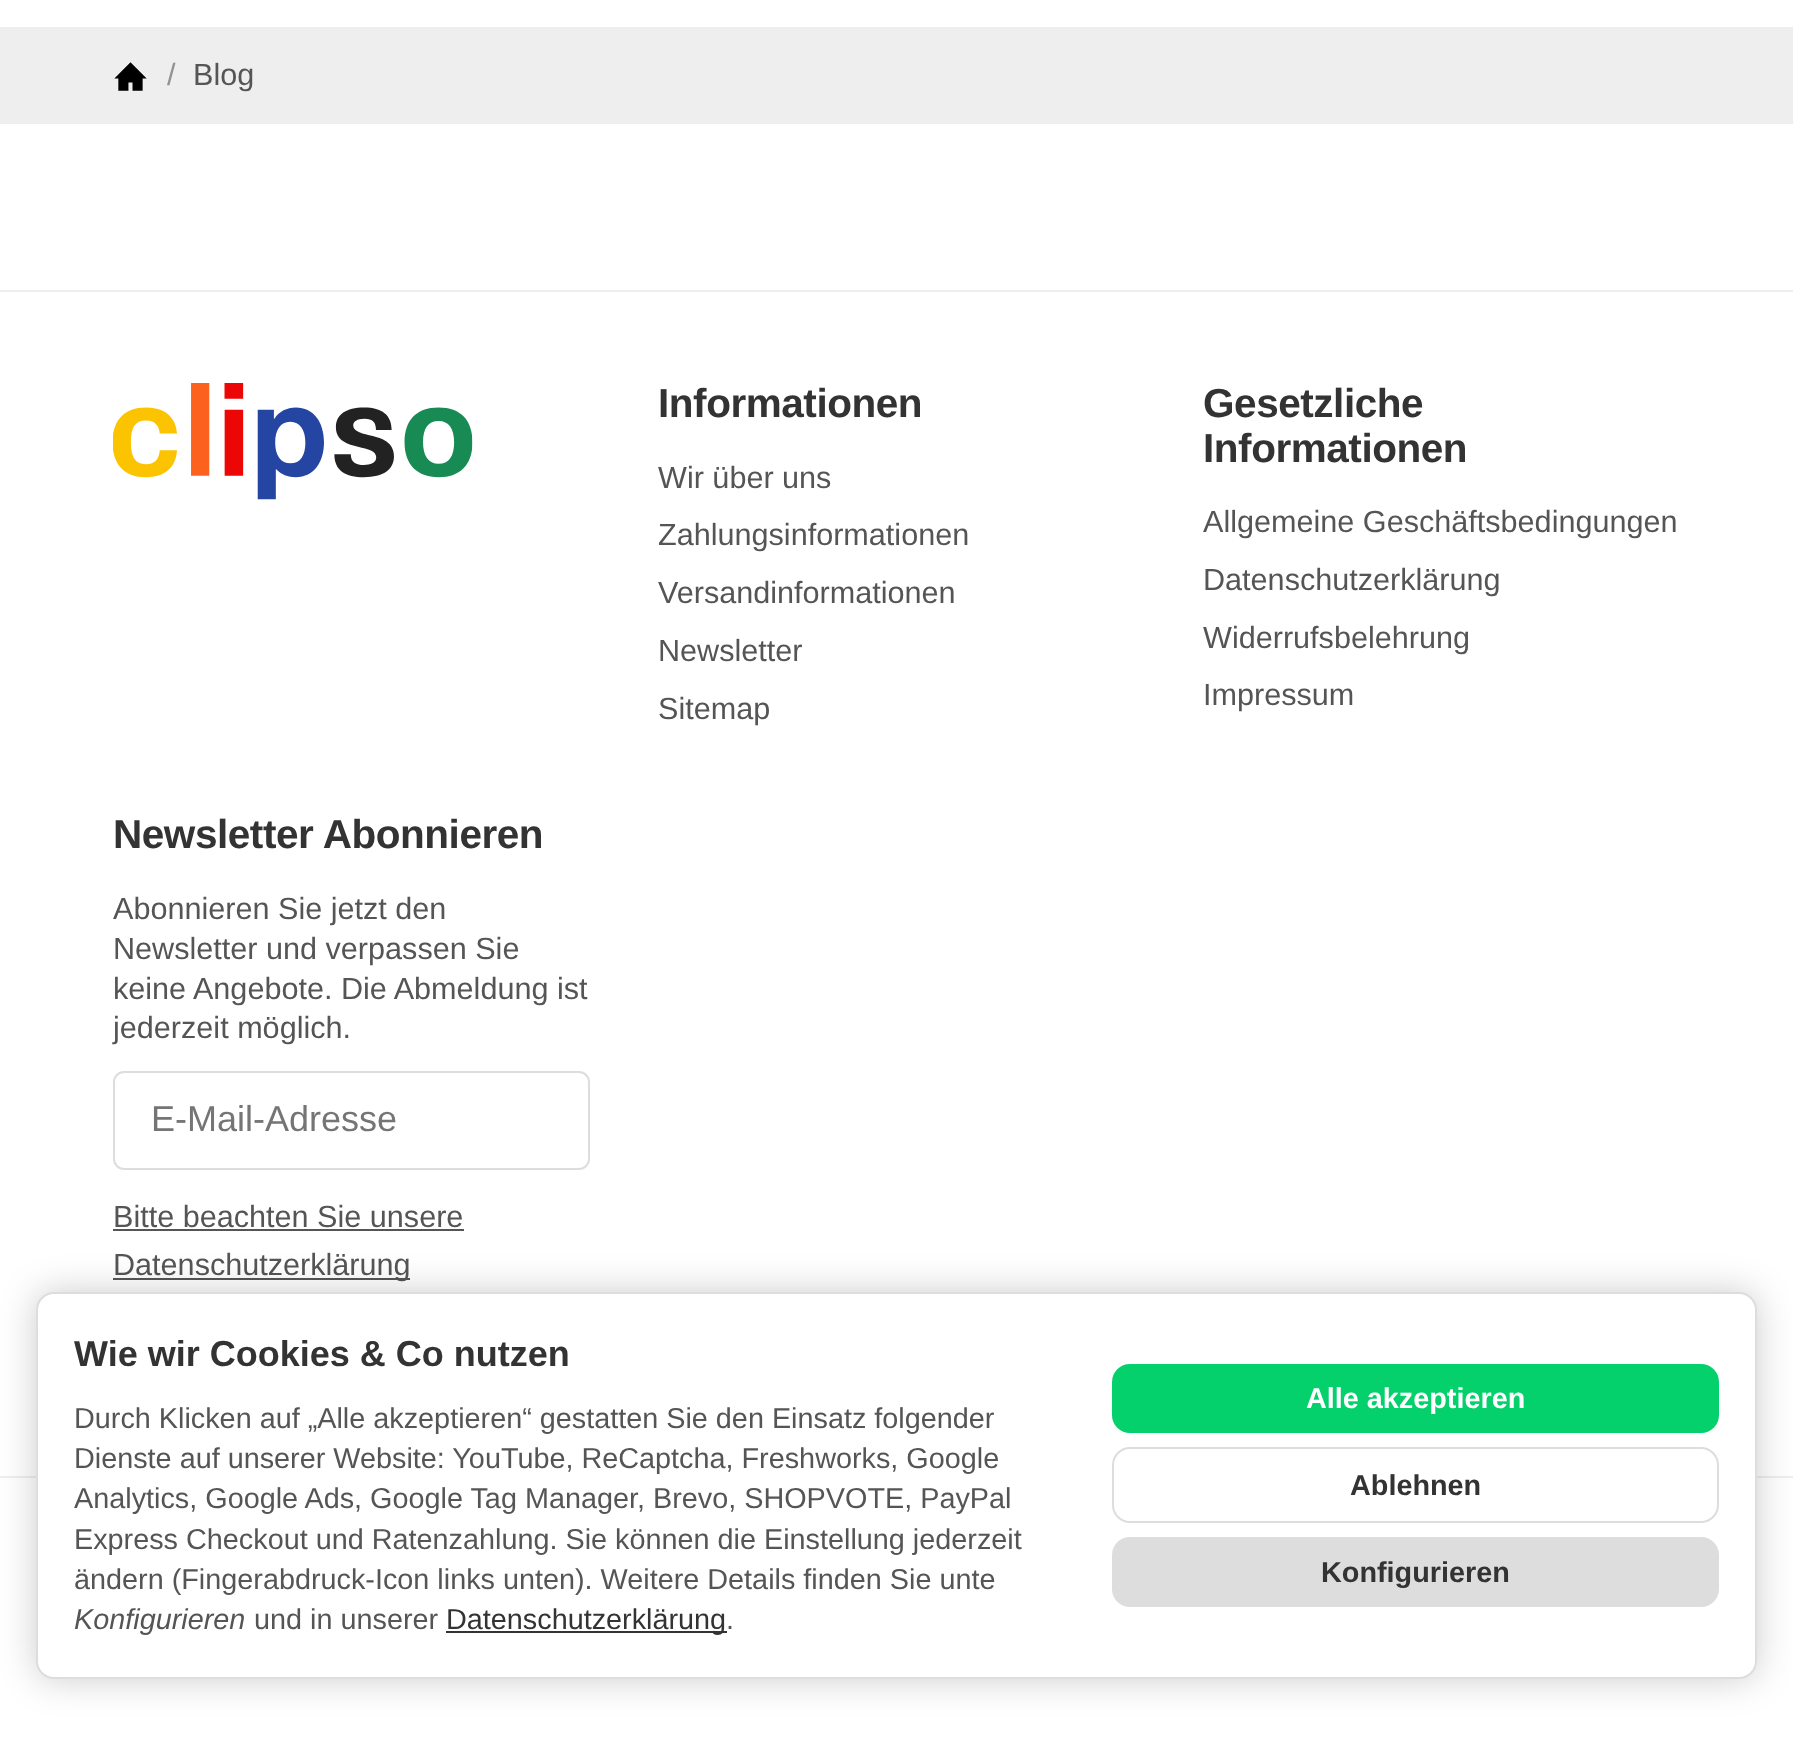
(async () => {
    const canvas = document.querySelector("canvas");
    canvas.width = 1793;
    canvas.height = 1749;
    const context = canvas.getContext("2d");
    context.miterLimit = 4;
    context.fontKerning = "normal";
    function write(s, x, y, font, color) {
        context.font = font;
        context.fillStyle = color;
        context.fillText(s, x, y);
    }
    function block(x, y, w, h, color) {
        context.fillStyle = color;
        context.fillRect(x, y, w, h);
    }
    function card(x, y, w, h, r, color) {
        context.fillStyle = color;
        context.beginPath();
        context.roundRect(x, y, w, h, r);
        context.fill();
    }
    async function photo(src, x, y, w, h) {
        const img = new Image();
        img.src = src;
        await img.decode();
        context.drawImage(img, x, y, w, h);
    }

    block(0, 0, 1793, 1749, "rgb(255, 255, 255)");
    block(0, 27, 1793, 97, "rgb(238, 238, 238)");
    await photo("media/1.png", 114, 62, 33, 29);
    write("/", 167, 85, "30.6px Liberation Sans", "rgb(146, 146, 146)");
    write("Blog", 193, 85, "30.6px Liberation Sans", "rgb(85, 85, 85)");
    block(0, 290, 1793, 2, "rgb(238, 238, 238)");
    block(0, 1476, 1793, 2, "rgb(238, 238, 238)");
    await photo("media/2.png", 113, 383, 360, 117);
    context.letterSpacing = "-0.45px";
    write("Informationen", 658, 417, "bold 40.5px Liberation Sans", "rgb(51, 51, 51)");
    context.letterSpacing = "0px";
    write("Wir über uns", 658, 488, "30.6px Liberation Sans", "rgb(85, 85, 85)");
    write("Zahlungsinformationen", 658, 545, "30.6px Liberation Sans", "rgb(85, 85, 85)");
    write("Versandinformationen", 658, 603, "30.6px Liberation Sans", "rgb(85, 85, 85)");
    write("Newsletter", 658, 661, "30.6px Liberation Sans", "rgb(85, 85, 85)");
    write("Sitemap", 658, 719, "30.6px Liberation Sans", "rgb(85, 85, 85)");
    context.letterSpacing = "-0.45px";
    write("Gesetzliche", 1203, 417, "bold 40.5px Liberation Sans", "rgb(51, 51, 51)");
    write("Informationen", 1203, 462, "bold 40.5px Liberation Sans", "rgb(51, 51, 51)");
    context.letterSpacing = "0px";
    write("Allgemeine Geschäftsbedingungen", 1203, 532, "30.6px Liberation Sans", "rgb(85, 85, 85)");
    write("Datenschutzerklärung", 1203, 590, "30.6px Liberation Sans", "rgb(85, 85, 85)");
    write("Widerrufsbelehrung", 1203, 648, "30.6px Liberation Sans", "rgb(85, 85, 85)");
    write("Impressum", 1203, 705, "30.6px Liberation Sans", "rgb(85, 85, 85)");
    context.letterSpacing = "-0.45px";
    write("Newsletter Abonnieren", 113, 848, "bold 40.5px Liberation Sans", "rgb(51, 51, 51)");
    context.letterSpacing = "0px";
    write("Abonnieren Sie jetzt den", 113, 919, "30.6px Liberation Sans", "rgb(85, 85, 85)");
    write("Newsletter und verpassen Sie", 113, 959, "30.6px Liberation Sans", "rgb(85, 85, 85)");
    write("keine Angebote. Die Abmeldung ist", 113, 999, "30.6px Liberation Sans", "rgb(85, 85, 85)");
    write("jederzeit möglich.", 113, 1038, "30.6px Liberation Sans", "rgb(85, 85, 85)");
    context.beginPath();
    context.roundRect(114, 1072, 475, 97, 10);
    context.strokeStyle = "rgb(221, 221, 221)";
    context.lineWidth = 2;
    context.stroke();
    write("E-Mail-Adresse", 151, 1131, "36px Liberation Sans", "rgb(117, 117, 117)");
    write("Bitte beachten Sie unsere", 113, 1227, "30.6px Liberation Sans", "rgb(85, 85, 85)");
    block(113, 1229, 351, 2, "rgb(85, 85, 85)");
    block(113, 1278, 297, 2, "rgb(85, 85, 85)");
    write("Datenschutzerklärung", 113, 1275, "30.6px Liberation Sans", "rgb(85, 85, 85)");
    context.fillStyle = "rgba(0, 0, 0, 0.2)";
    context.filter = "blur(18px)";
    context.beginPath();
    context.roundRect(36, 1292, 1721, 387, 18);
    context.fill();
    context.filter = "none";
    context.fillStyle = "rgb(255, 255, 255)";
    context.beginPath();
    context.roundRect(37, 1293, 1719, 385, 17);
    context.fill();
    context.stroke();
    write("Wie wir Cookies & Co nutzen", 74, 1366, "bold 36px Liberation Sans", "rgb(51, 51, 51)");
    write("Durch Klicken auf „Alle akzeptieren“ gestatten Sie den Einsatz folgender", 74, 1428, "28.8px Liberation Sans", "rgb(85, 85, 85)");
    write("Dienste auf unserer Website: YouTube, ReCaptcha, Freshworks, Google", 74, 1468, "28.8px Liberation Sans", "rgb(85, 85, 85)");
    write("Analytics, Google Ads, Google Tag Manager, Brevo, SHOPVOTE, PayPal", 74, 1508, "28.8px Liberation Sans", "rgb(85, 85, 85)");
    write("Express Checkout und Ratenzahlung. Sie können die Einstellung jederzeit", 74, 1549, "28.8px Liberation Sans", "rgb(85, 85, 85)");
    write("ändern (Fingerabdruck-Icon links unten). Weitere Details finden Sie unte", 74, 1589, "28.8px Liberation Sans", "rgb(85, 85, 85)");
    write("Konfigurieren", 74, 1629, "italic 28.8px Liberation Sans", "rgb(85, 85, 85)");
    write("und in unserer", 254, 1629, "28.8px Liberation Sans", "rgb(85, 85, 85)");
    block(446, 1631, 281, 2, "rgb(51, 51, 51)");
    write("Datenschutzerklärung", 446, 1629, "28.8px Liberation Sans", "rgb(51, 51, 51)");
    write(".", 726, 1629, "28.8px Liberation Sans", "rgb(85, 85, 85)");
    card(1112, 1364, 607, 69, 18, "rgb(4, 208, 108)");
    write("Alle akzeptieren", 1306, 1408, "bold 28.8px Liberation Sans", "rgb(255, 255, 255)");
    context.beginPath();
    context.roundRect(1113, 1448, 605, 74, 17);
    context.stroke();
    write("Ablehnen", 1350, 1495, "bold 28.8px Liberation Sans", "rgb(51, 51, 51)");
    card(1112, 1537, 607, 70, 18, "rgb(221, 221, 221)");
    write("Konfigurieren", 1321, 1582, "bold 28.8px Liberation Sans", "rgb(51, 51, 51)");
})();
